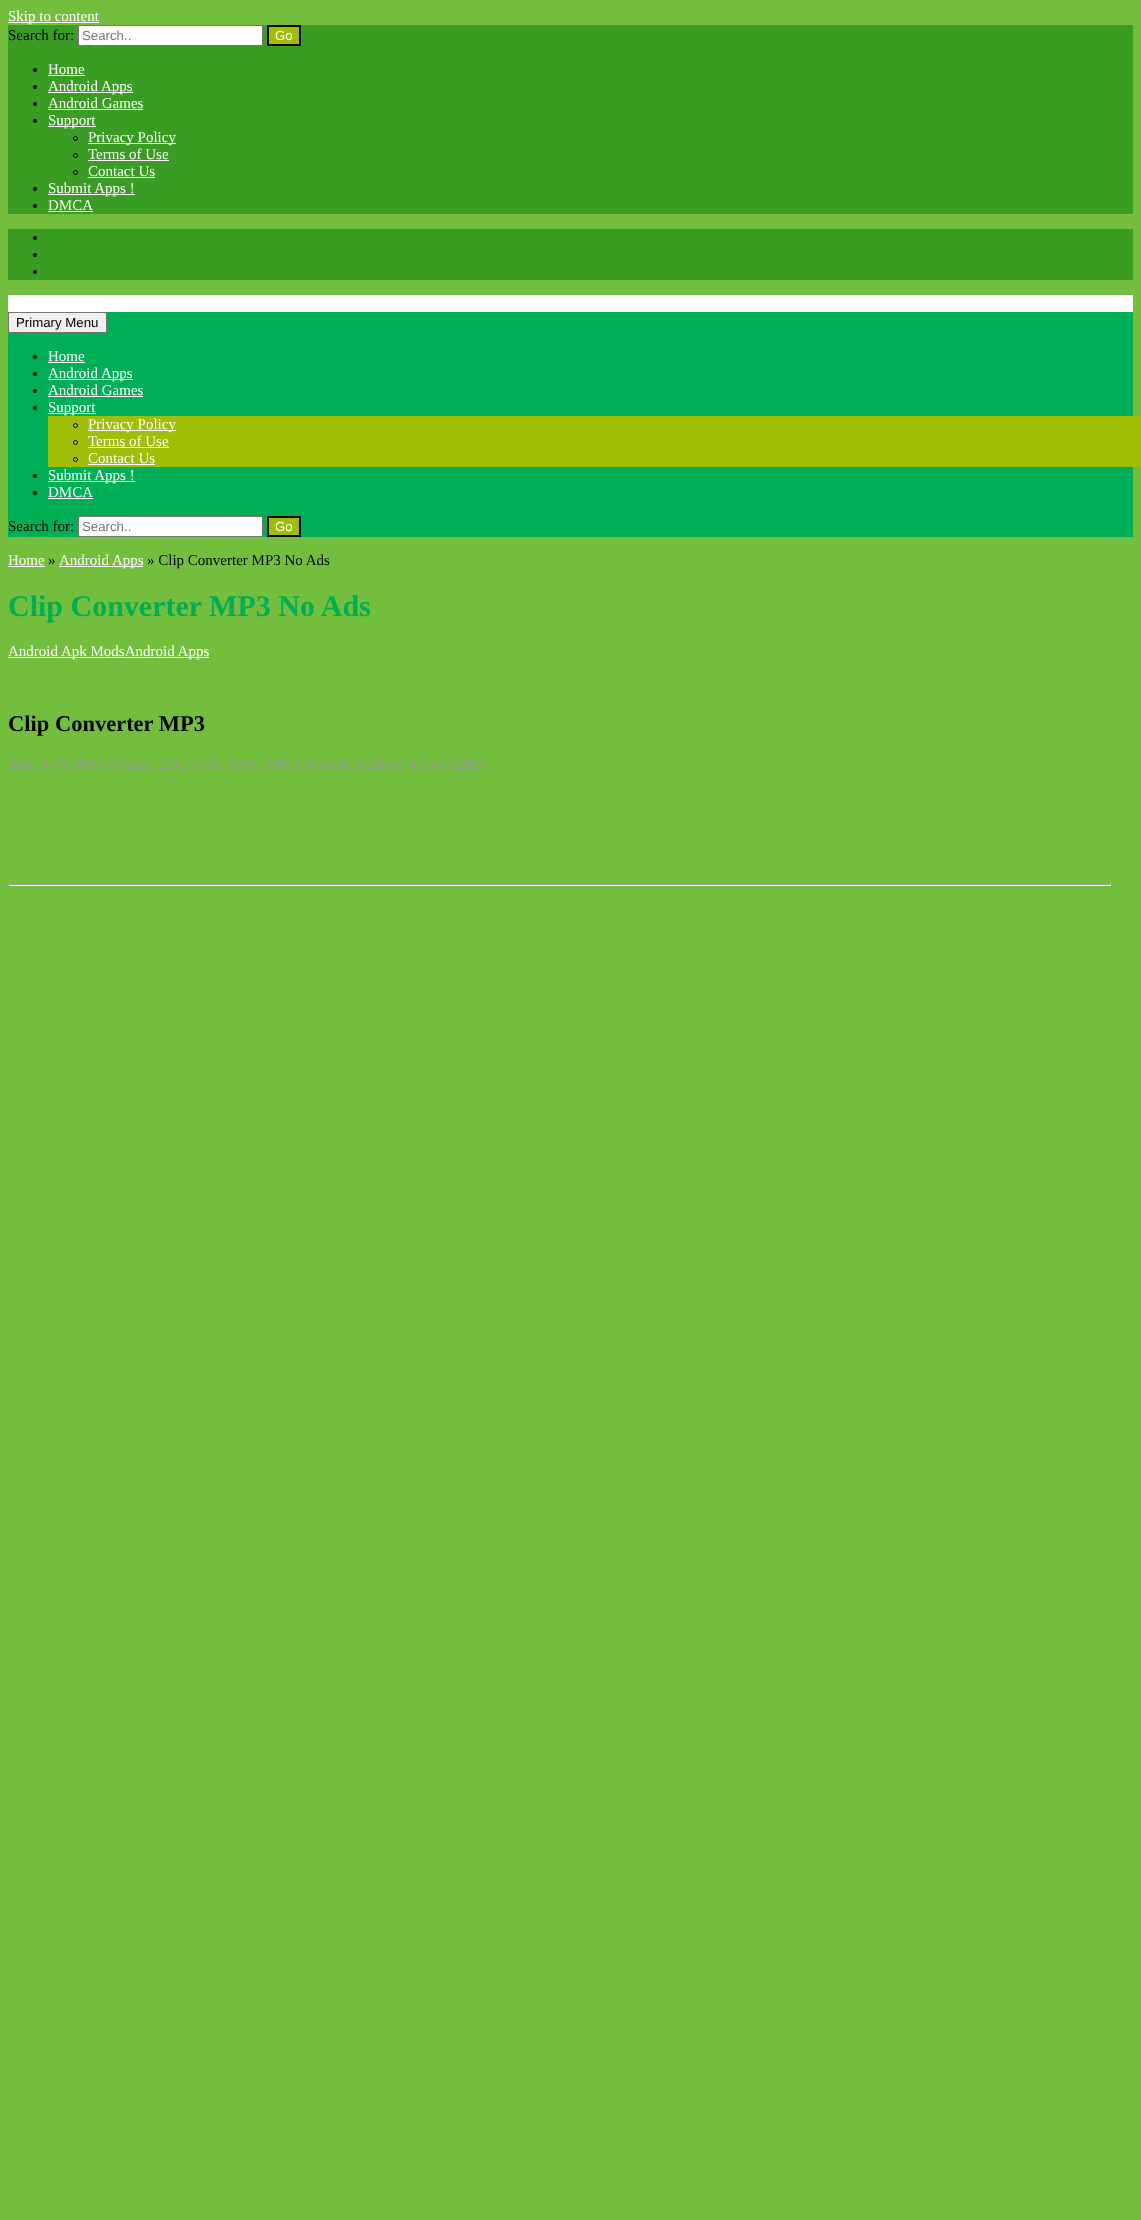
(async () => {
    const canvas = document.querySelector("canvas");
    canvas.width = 1141;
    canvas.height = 2220;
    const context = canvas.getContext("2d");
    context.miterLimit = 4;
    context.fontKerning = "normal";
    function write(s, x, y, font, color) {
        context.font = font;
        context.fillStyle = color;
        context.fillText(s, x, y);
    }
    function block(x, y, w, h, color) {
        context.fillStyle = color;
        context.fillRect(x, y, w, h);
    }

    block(0, 0, 1141, 2220, "rgb(115, 191, 61)");
    block(8, 22, 91, 1, "rgb(255, 255, 255)");
    write("Skip to content", 8, 21, "15px Liberation Serif", "rgb(255, 255, 255)");
    block(8, 25, 1125, 189, "rgb(58, 157, 35)");
    write("Search for:", 8, 40, "15px Liberation Serif", "rgb(0, 0, 0)");
    context.fillStyle = "rgb(255, 255, 255)";
    context.beginPath();
    context.roundRect(78.5, 25.5, 184, 20, 1.5);
    context.fill();
    context.strokeStyle = "rgb(118, 118, 118)";
    context.stroke();
    write("Search..", 82, 40, "13.25px Liberation Sans", "rgb(117, 117, 117)");
    context.fillStyle = "rgb(159, 191, 6)";
    context.beginPath();
    context.rect(268, 26, 32, 19);
    context.fill();
    context.strokeStyle = "rgb(0, 0, 0)";
    context.lineWidth = 2;
    context.stroke();
    write("Go", 275, 40, "13.25px Liberation Sans", "rgb(255, 255, 255)");
    context.fillStyle = "rgb(0, 0, 0)";
    context.beginPath();
    context.arc(35, 70, 2, 0, Math.PI * 2);
    context.fill();
    write("Home", 48, 74, "15px Liberation Serif", "rgb(255, 255, 255)");
    block(48, 75, 37, 1, "rgb(255, 255, 255)");
    context.fillStyle = "rgb(0, 0, 0)";
    context.beginPath();
    context.arc(35, 87, 2, 0, Math.PI * 2);
    context.fill();
    block(48, 92, 85, 1, "rgb(255, 255, 255)");
    write("Android Apps", 48, 91, "15px Liberation Serif", "rgb(255, 255, 255)");
    context.fillStyle = "rgb(0, 0, 0)";
    context.beginPath();
    context.arc(35, 104, 2, 0, Math.PI * 2);
    context.fill();
    write("Android Games", 48, 108, "15px Liberation Serif", "rgb(255, 255, 255)");
    block(48, 109, 95, 1, "rgb(255, 255, 255)");
    context.fillStyle = "rgb(0, 0, 0)";
    context.beginPath();
    context.arc(35, 121, 2, 0, Math.PI * 2);
    context.fill();
    block(48, 126, 48, 1, "rgb(255, 255, 255)");
    write("Support", 48, 125, "15px Liberation Serif", "rgb(255, 255, 255)");
    context.beginPath();
    context.arc(75.5, 138.5, 2, 0, Math.PI * 2);
    context.lineWidth = 1;
    context.stroke();
    block(88, 143, 88, 1, "rgb(255, 255, 255)");
    write("Privacy Policy", 88, 142, "15px Liberation Serif", "rgb(255, 255, 255)");
    context.beginPath();
    context.arc(75.5, 155.5, 2, 0, Math.PI * 2);
    context.stroke();
    write("Terms of Use", 88, 159, "15px Liberation Serif", "rgb(255, 255, 255)");
    block(88, 160, 81, 1, "rgb(255, 255, 255)");
    context.beginPath();
    context.arc(75.5, 172.5, 2, 0, Math.PI * 2);
    context.stroke();
    write("Contact Us", 88, 176, "15px Liberation Serif", "rgb(255, 255, 255)");
    block(88, 177, 67, 1, "rgb(255, 255, 255)");
    context.fillStyle = "rgb(0, 0, 0)";
    context.beginPath();
    context.arc(35, 189, 2, 0, Math.PI * 2);
    context.fill();
    block(48, 194, 87, 1, "rgb(255, 255, 255)");
    write("Submit Apps !", 48, 193, "15px Liberation Serif", "rgb(255, 255, 255)");
    context.fillStyle = "rgb(0, 0, 0)";
    context.beginPath();
    context.arc(35, 206, 2, 0, Math.PI * 2);
    context.fill();
    write("DMCA", 48, 210, "15px Liberation Serif", "rgb(255, 255, 255)");
    block(48, 211, 45, 1, "rgb(255, 255, 255)");
    block(8, 229, 1125, 51, "rgb(58, 157, 35)");
    context.fillStyle = "rgb(0, 0, 0)";
    context.beginPath();
    context.arc(35, 238, 2, 0, Math.PI * 2);
    context.fill();
    context.beginPath();
    context.arc(35, 255, 2, 0, Math.PI * 2);
    context.fill();
    context.beginPath();
    context.arc(35, 272, 2, 0, Math.PI * 2);
    context.fill();
    block(8, 312, 1125, 225, "rgb(0, 175, 85)");
    block(8, 295, 1125, 17, "rgb(255, 255, 255)");
    context.fillStyle = "rgb(239, 239, 239)";
    context.beginPath();
    context.roundRect(8.5, 312.5, 98, 20, 1.5);
    context.fill();
    context.strokeStyle = "rgb(118, 118, 118)";
    context.stroke();
    write("Primary Menu", 16, 327, "13.25px Liberation Sans", "rgb(0, 0, 0)");
    context.beginPath();
    context.arc(35, 357, 2, 0, Math.PI * 2);
    context.fill();
    write("Home", 48, 361, "15px Liberation Serif", "rgb(255, 255, 255)");
    block(48, 362, 37, 1, "rgb(255, 255, 255)");
    context.fillStyle = "rgb(0, 0, 0)";
    context.beginPath();
    context.arc(35, 374, 2, 0, Math.PI * 2);
    context.fill();
    block(48, 379, 85, 1, "rgb(255, 255, 255)");
    write("Android Apps", 48, 378, "15px Liberation Serif", "rgb(255, 255, 255)");
    context.fillStyle = "rgb(0, 0, 0)";
    context.beginPath();
    context.arc(35, 391, 2, 0, Math.PI * 2);
    context.fill();
    write("Android Games", 48, 395, "15px Liberation Serif", "rgb(255, 255, 255)");
    block(48, 396, 95, 1, "rgb(255, 255, 255)");
    context.fillStyle = "rgb(0, 0, 0)";
    context.beginPath();
    context.arc(35, 408, 2, 0, Math.PI * 2);
    context.fill();
    block(48, 413, 48, 1, "rgb(255, 255, 255)");
    write("Support", 48, 412, "15px Liberation Serif", "rgb(255, 255, 255)");
    block(48, 416, 1093, 51, "rgb(159, 191, 6)");
    context.beginPath();
    context.arc(75.5, 425.5, 2, 0, Math.PI * 2);
    context.strokeStyle = "rgb(0, 0, 0)";
    context.stroke();
    block(88, 430, 88, 1, "rgb(255, 255, 255)");
    write("Privacy Policy", 88, 429, "15px Liberation Serif", "rgb(255, 255, 255)");
    context.beginPath();
    context.arc(75.5, 442.5, 2, 0, Math.PI * 2);
    context.stroke();
    write("Terms of Use", 88, 446, "15px Liberation Serif", "rgb(255, 255, 255)");
    block(88, 447, 81, 1, "rgb(255, 255, 255)");
    context.beginPath();
    context.arc(75.5, 459.5, 2, 0, Math.PI * 2);
    context.stroke();
    write("Contact Us", 88, 463, "15px Liberation Serif", "rgb(255, 255, 255)");
    block(88, 464, 67, 1, "rgb(255, 255, 255)");
    context.fillStyle = "rgb(0, 0, 0)";
    context.beginPath();
    context.arc(35, 476, 2, 0, Math.PI * 2);
    context.fill();
    block(48, 481, 87, 1, "rgb(255, 255, 255)");
    write("Submit Apps !", 48, 480, "15px Liberation Serif", "rgb(255, 255, 255)");
    context.fillStyle = "rgb(0, 0, 0)";
    context.beginPath();
    context.arc(35, 493, 2, 0, Math.PI * 2);
    context.fill();
    write("DMCA", 48, 497, "15px Liberation Serif", "rgb(255, 255, 255)");
    block(48, 498, 45, 1, "rgb(255, 255, 255)");
    write("Search for:", 8, 531, "15px Liberation Serif", "rgb(0, 0, 0)");
    context.fillStyle = "rgb(255, 255, 255)";
    context.beginPath();
    context.roundRect(78.5, 516.5, 184, 20, 1.5);
    context.fill();
    context.strokeStyle = "rgb(118, 118, 118)";
    context.stroke();
    write("Search..", 82, 531, "13.25px Liberation Sans", "rgb(117, 117, 117)");
    context.fillStyle = "rgb(159, 191, 6)";
    context.beginPath();
    context.rect(268, 517, 32, 19);
    context.fill();
    context.strokeStyle = "rgb(0, 0, 0)";
    context.lineWidth = 2;
    context.stroke();
    write("Go", 275, 531, "13.25px Liberation Sans", "rgb(255, 255, 255)");
    write("Home", 8, 565, "15px Liberation Serif", "rgb(255, 255, 255)");
    block(8, 566, 37, 1, "rgb(255, 255, 255)");
    write("»", 48, 565, "15px Liberation Serif", "rgb(0, 0, 0)");
    block(59, 566, 84, 1, "rgb(255, 255, 255)");
    write("Android Apps", 59, 565, "15px Liberation Serif", "rgb(255, 255, 255)");
    write("» Clip Converter MP3 No Ads", 147, 565, "15px Liberation Serif", "rgb(0, 0, 0)");
    write("Clip Converter MP3 No Ads", 8, 616, "bold 30px Liberation Serif", "rgb(0, 175, 85)");
    block(8, 657, 201, 1, "rgb(255, 255, 255)");
    write("Android Apk ModsAndroid Apps", 8, 656, "15px Liberation Serif", "rgb(255, 255, 255)");
    write("Clip Converter MP3", 8, 731, "bold 22.5px Liberation Serif", "rgb(0, 0, 0)");
    write("Size: 4.79 MB | Version: 2.0.5 | File Type: APK | System: Android 4.0 or higher", 8, 769, "15px Liberation Serif", "rgb(153, 153, 153)");
    block(8, 884, 1103, 1, "rgb(159, 159, 159)");
    block(1110, 884, 1, 2, "rgb(238, 238, 238)");
    block(8, 885, 1103, 1, "rgb(238, 238, 238)");
    block(8, 884, 1, 2, "rgb(159, 159, 159)");
})();
